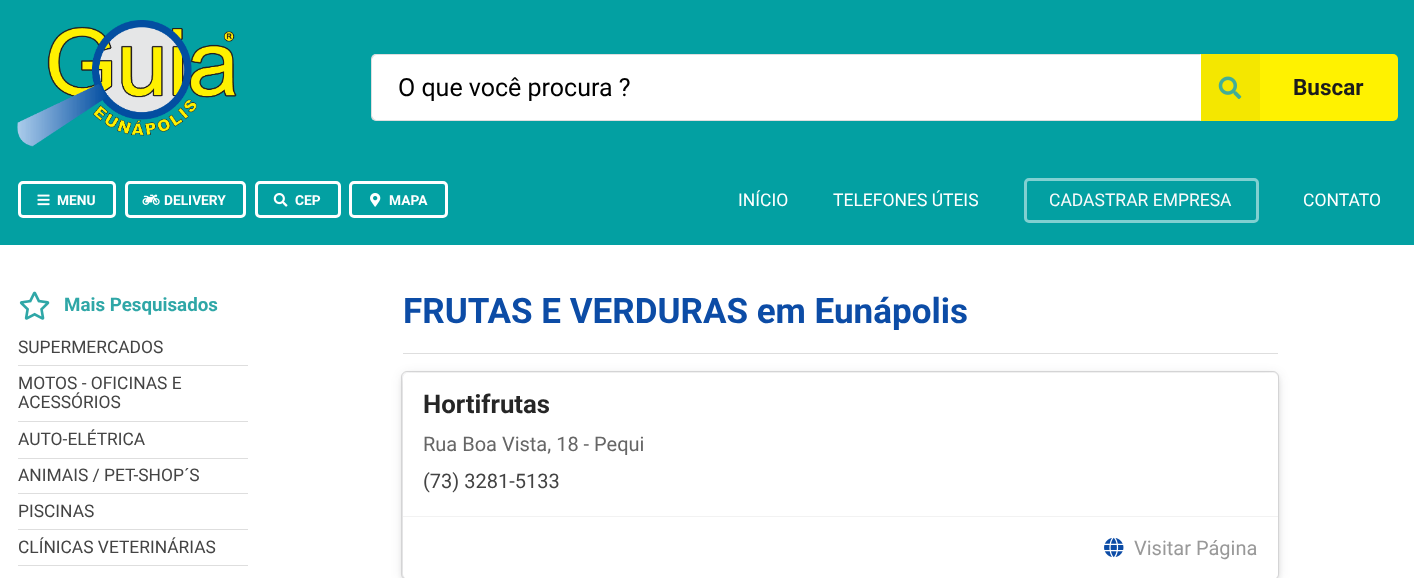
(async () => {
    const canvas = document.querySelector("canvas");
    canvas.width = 1414;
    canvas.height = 578;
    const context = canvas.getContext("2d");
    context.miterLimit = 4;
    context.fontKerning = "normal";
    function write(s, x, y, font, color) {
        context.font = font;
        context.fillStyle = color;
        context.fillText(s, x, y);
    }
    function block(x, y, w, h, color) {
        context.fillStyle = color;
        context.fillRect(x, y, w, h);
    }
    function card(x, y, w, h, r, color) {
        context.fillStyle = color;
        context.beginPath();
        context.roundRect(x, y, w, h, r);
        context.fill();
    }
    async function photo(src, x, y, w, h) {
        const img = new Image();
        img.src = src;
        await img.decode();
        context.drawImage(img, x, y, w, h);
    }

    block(0, 0, 1414, 578, "rgb(255, 255, 255)");
    block(0, 0, 1414, 245, "rgb(3, 160, 162)");
    await photo("media/1.png", 17, 20, 220, 127);
    context.fillStyle = "rgb(255, 255, 255)";
    context.beginPath();
    context.roundRect(371, 54, 830, 67, [5, 0, 0, 5]);
    context.fill();
    context.fillStyle = "rgba(34, 36, 38, 0.15)";
    context.beginPath();
    context.moveTo(376, 54);
    context.lineTo(373, 55);
    context.lineTo(374, 56);
    context.lineTo(376, 55);
    context.lineTo(1200, 55);
    context.lineTo(1201, 54);
    context.closePath();
    context.fill();
    context.beginPath();
    context.moveTo(1201, 121);
    context.lineTo(1200, 120);
    context.lineTo(376, 120);
    context.lineTo(374, 119);
    context.lineTo(373, 120);
    context.lineTo(376, 121);
    context.closePath();
    context.fill();
    context.beginPath();
    context.moveTo(371, 57);
    context.lineTo(373, 55);
    context.lineTo(374, 56);
    context.lineTo(372, 59);
    context.lineTo(372, 116);
    context.lineTo(374, 119);
    context.lineTo(373, 120);
    context.lineTo(371, 118);
    context.closePath();
    context.fill();
    write("O que você procura ?", 398, 96, "25px Roboto", "rgb(0, 0, 0)");
    context.fillStyle = "rgb(255, 242, 0)";
    context.beginPath();
    context.roundRect(1201, 54, 197, 67, [0, 5, 5, 0]);
    context.fill();
    block(1201, 54, 59, 67, "rgb(244, 231, 0)");
    await photo("media/2.png", 1218, 76, 24, 23);
    write("Buscar", 1293, 95, "bold 22.5px Roboto", "rgb(27, 28, 29)");
    context.beginPath();
    context.roundRect(19.5, 182.5, 95, 34, 3.5);
    context.strokeStyle = "rgb(255, 255, 255)";
    context.lineWidth = 3;
    context.stroke();
    await photo("media/3.png", 37, 194, 13, 12);
    write("MENU", 57, 205, "bold 13.75px Roboto", "rgb(255, 255, 255)");
    context.beginPath();
    context.roundRect(126.5, 182.5, 118, 34, 3.5);
    context.stroke();
    await photo("media/4.png", 142, 194, 18, 11);
    write("DELIVERY", 164, 205, "bold 13.75px Roboto", "rgb(255, 255, 255)");
    context.beginPath();
    context.roundRect(256.5, 182.5, 83, 34, 3.5);
    context.stroke();
    await photo("media/5.png", 273, 193, 15, 14);
    write("CEP", 295, 205, "bold 13.75px Roboto", "rgb(255, 255, 255)");
    context.beginPath();
    context.roundRect(350.5, 182.5, 96, 34, 3.5);
    context.stroke();
    await photo("media/6.png", 370, 193, 11, 14);
    write("MAPA", 389, 205, "bold 13.75px Roboto", "rgb(255, 255, 255)");
    write("INÍCIO", 738, 206, "17.5px Roboto", "rgb(255, 255, 255)");
    write("TELEFONES ÚTEIS", 833, 206, "17.5px Roboto", "rgb(255, 255, 255)");
    context.beginPath();
    context.roundRect(1025.5, 179.5, 232, 42, 3.5);
    context.strokeStyle = "rgb(129, 208, 209)";
    context.stroke();
    write("CADASTRAR EMPRESA", 1049, 206, "17.5px Roboto", "rgb(249, 250, 251)");
    write("CONTATO", 1303, 206, "17.5px Roboto", "rgb(255, 255, 255)");
    await photo("media/7.png", 19, 291, 31, 29);
    write("Mais Pesquisados", 64, 311, "bold 18.75px Roboto", "rgb(47, 167, 167)");
    write("SUPERMERCADOS", 18, 353, "17.4px Roboto", "rgb(68, 68, 68)");
    block(18, 365, 230, 1, "rgb(222, 222, 222)");
    write("MOTOS - OFICINAS E", 18, 389, "17.4px Roboto", "rgb(68, 68, 68)");
    write("ACESSÓRIOS", 18, 408, "17.4px Roboto", "rgb(68, 68, 68)");
    block(18, 421, 230, 1, "rgb(222, 222, 222)");
    write("AUTO-ELÉTRICA", 18, 445, "17.4px Roboto", "rgb(68, 68, 68)");
    block(18, 458, 230, 1, "rgb(222, 222, 222)");
    write("ANIMAIS / PET-SHOP´S", 18, 481, "17.4px Roboto", "rgb(68, 68, 68)");
    block(18, 493, 230, 1, "rgb(222, 222, 222)");
    write("PISCINAS", 18, 517, "17.4px Roboto", "rgb(68, 68, 68)");
    block(18, 529, 230, 1, "rgb(222, 222, 222)");
    write("CLÍNICAS VETERINÁRIAS", 18, 553, "17.4px Roboto", "rgb(68, 68, 68)");
    block(18, 565, 230, 1, "rgb(222, 222, 222)");
    write("FRUTAS E VERDURAS em Eunápolis", 403, 323, "bold 35px Roboto", "rgb(12, 76, 166)");
    block(403, 353, 875, 1, "rgb(222, 222, 222)");
    context.fillStyle = "rgba(34, 36, 38, 0.15)";
    context.filter = "blur(6px)";
    context.beginPath();
    context.roundRect(403, 375, 875, 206, 5);
    context.fill();
    context.filter = "none";
    context.fillStyle = "rgba(34, 36, 38, 0.12)";
    context.filter = "blur(2.5px)";
    context.beginPath();
    context.roundRect(403, 375, 875, 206, 5);
    context.fill();
    context.filter = "none";
    context.beginPath();
    context.roundRect(401.5, 371.5, 877, 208, 5.5);
    context.strokeStyle = "rgb(212, 212, 213)";
    context.lineWidth = 1;
    context.stroke();
    card(403, 373, 875, 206, 5, "rgb(255, 255, 255)");
    write("Hortifrutas", 423, 413, "bold 25.75px Roboto", "rgb(38, 38, 38)");
    write("Rua Boa Vista, 18 - Pequi", 423, 451, "20px Roboto", "rgb(102, 102, 102)");
    write("(73) 3281-5133", 423, 488, "20px Roboto", "rgb(68, 68, 68)");
    block(403, 516, 875, 1, "rgb(242, 242, 242)");
    await photo("media/8.png", 1104, 537, 20, 21);
    write("Visitar Página", 1134, 555, "20px Roboto", "rgb(153, 153, 153)");
})();
